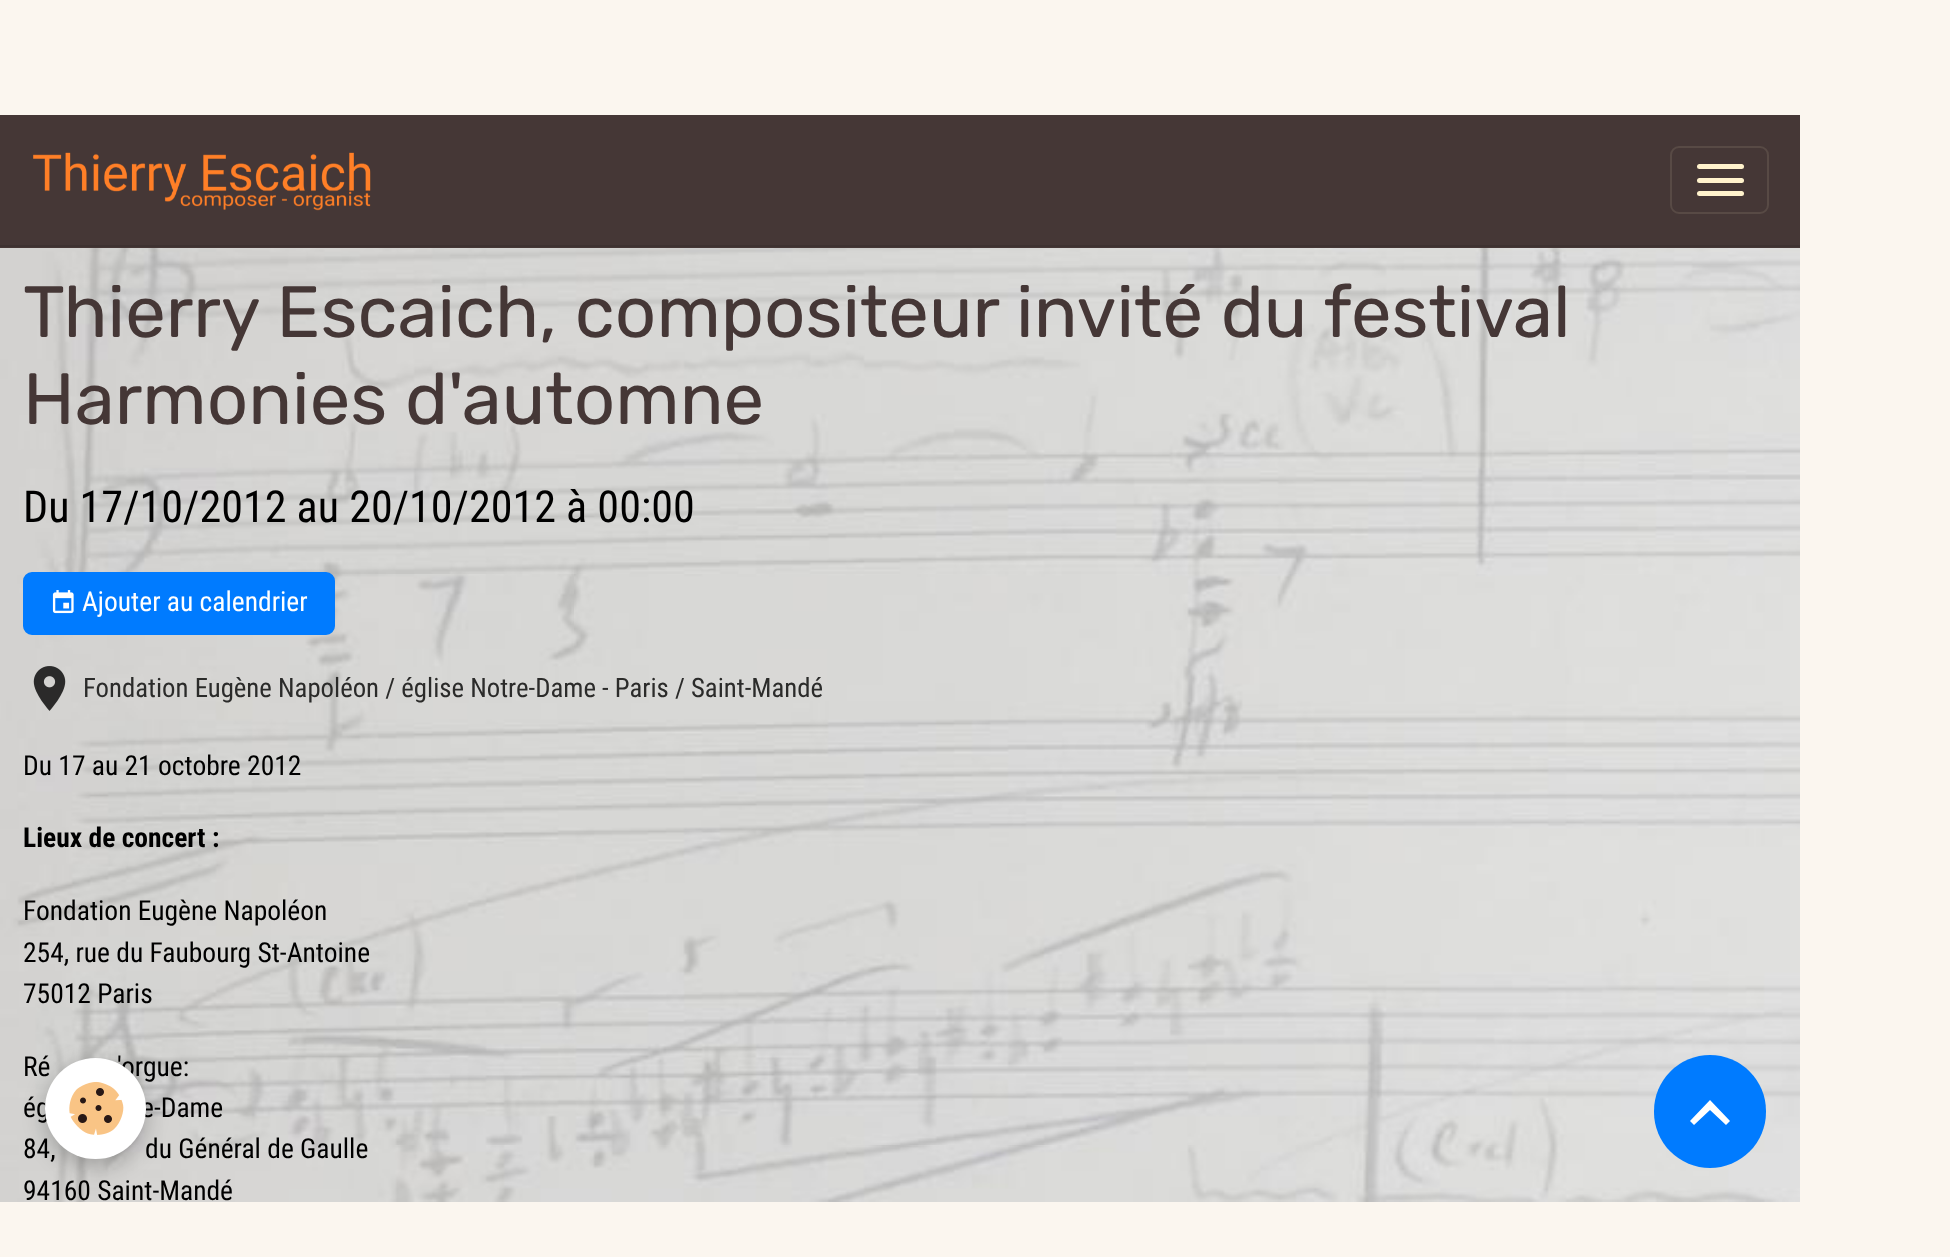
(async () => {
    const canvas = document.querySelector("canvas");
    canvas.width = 1950;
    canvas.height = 1257;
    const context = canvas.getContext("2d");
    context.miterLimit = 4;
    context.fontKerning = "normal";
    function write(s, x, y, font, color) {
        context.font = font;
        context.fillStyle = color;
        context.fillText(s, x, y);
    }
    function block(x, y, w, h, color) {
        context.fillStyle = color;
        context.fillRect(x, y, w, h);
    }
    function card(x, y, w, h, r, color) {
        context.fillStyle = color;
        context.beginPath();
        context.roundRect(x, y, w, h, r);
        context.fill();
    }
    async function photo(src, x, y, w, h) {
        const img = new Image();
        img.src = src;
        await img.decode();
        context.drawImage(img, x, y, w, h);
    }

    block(0, 0, 1950, 1257, "rgb(251, 246, 239)");
    await photo("media/1.png", 0, 248, 1800, 954);
    block(0, 115, 1800, 133, "rgb(69, 55, 54)");
    block(0, 245, 1800, 2, "rgb(62, 50, 49)");
    await photo("media/2.png", 33, 152, 338, 59);
    context.beginPath();
    context.roundRect(1671, 147, 97, 66, 8);
    context.strokeStyle = "rgb(88, 74, 69)";
    context.lineWidth = 2;
    context.stroke();
    card(1697, 164, 47, 5, 2.5, "rgb(255, 242, 204)");
    card(1697, 178, 47, 5, 2.5, "rgb(255, 242, 204)");
    card(1697, 191, 47, 5, 2.5, "rgb(255, 242, 204)");
    write("Thierry Escaich, compositeur invité du festival", 23, 337, "72.45px Rubik", "rgb(69, 55, 54)");
    write("Harmonies d'automne", 23, 424, "72.45px Rubik", "rgb(69, 55, 54)");
    write("Du 17/10/2012 au 20/10/2012 à 00:00", 23, 522, "44.1px Roboto Condensed", "rgb(0, 0, 0)");
    context.fillStyle = "rgb(0, 123, 255)";
    context.beginPath();
    context.roundRect(24, 573, 310, 61, 8);
    context.fill();
    context.strokeStyle = "rgb(0, 123, 255)";
    context.stroke();
    await photo("media/3.png", 52, 590, 22, 24);
    write("Ajouter au calendrier", 82, 611, "27.5px Roboto Condensed", "rgb(255, 255, 255)");
    await photo("media/4.png", 33, 666, 33, 45);
    write("Fondation Eugène Napoléon / église Notre-Dame", 83, 697, "26.75px Roboto Condensed", "rgb(43, 43, 42)");
    write("- Paris / Saint-Mandé", 602, 697, "26.75px Roboto Condensed", "rgb(43, 43, 42)");
    write("Du 17 au 21 octobre 2012", 23, 775, "27.5px Roboto Condensed", "rgb(0, 0, 0)");
    write("Lieux de concert :", 23, 847, "bold 27.5px Roboto Condensed", "rgb(0, 0, 0)");
    write("Fondation Eugène Napoléon", 23, 920, "27.5px Roboto Condensed", "rgb(0, 0, 0)");
    write("254, rue du Faubourg St-Antoine", 23, 962, "27.5px Roboto Condensed", "rgb(0, 0, 0)");
    write("75012 Paris", 23, 1003, "27.5px Roboto Condensed", "rgb(0, 0, 0)");
    write("Ré", 23, 1076, "27.5px Roboto Condensed", "rgb(0, 0, 0)");
    write("'orgue:", 117, 1076, "27.5px Roboto Condensed", "rgb(0, 0, 0)");
    write("ég", 23, 1117, "27.5px Roboto Condensed", "rgb(0, 0, 0)");
    write("e-Dame", 141, 1117, "27.5px Roboto Condensed", "rgb(0, 0, 0)");
    write("84,", 23, 1158, "27.5px Roboto Condensed", "rgb(0, 0, 0)");
    write("du Général de Gaulle", 145, 1158, "27.5px Roboto Condensed", "rgb(0, 0, 0)");
    write("94160 Saint-Mandé", 23, 1200, "27.5px Roboto Condensed", "rgb(0, 0, 0)");
    context.fillStyle = "rgba(0, 0, 0, 0.24)";
    context.filter = "blur(11px)";
    context.beginPath();
    context.roundRect(45, 1064, 101, 102, 50.5);
    context.fill();
    context.filter = "none";
    context.fillStyle = "rgb(255, 255, 255)";
    context.beginPath();
    context.arc(95.5, 1108.5, 50.5, 0, Math.PI * 2);
    context.fill();
    await photo("media/5.png", 69, 1081, 55, 54);
    card(1654, 1055, 112, 113, 56, "rgb(0, 123, 255)");
    context.fillStyle = "rgb(255, 255, 255)";
    context.beginPath();
    context.moveTo(1710, 1100);
    context.lineTo(1730, 1121);
    context.lineTo(1726, 1125);
    context.lineTo(1710, 1110);
    context.lineTo(1694, 1125);
    context.lineTo(1690, 1121);
    context.closePath();
    context.fill();
})();
